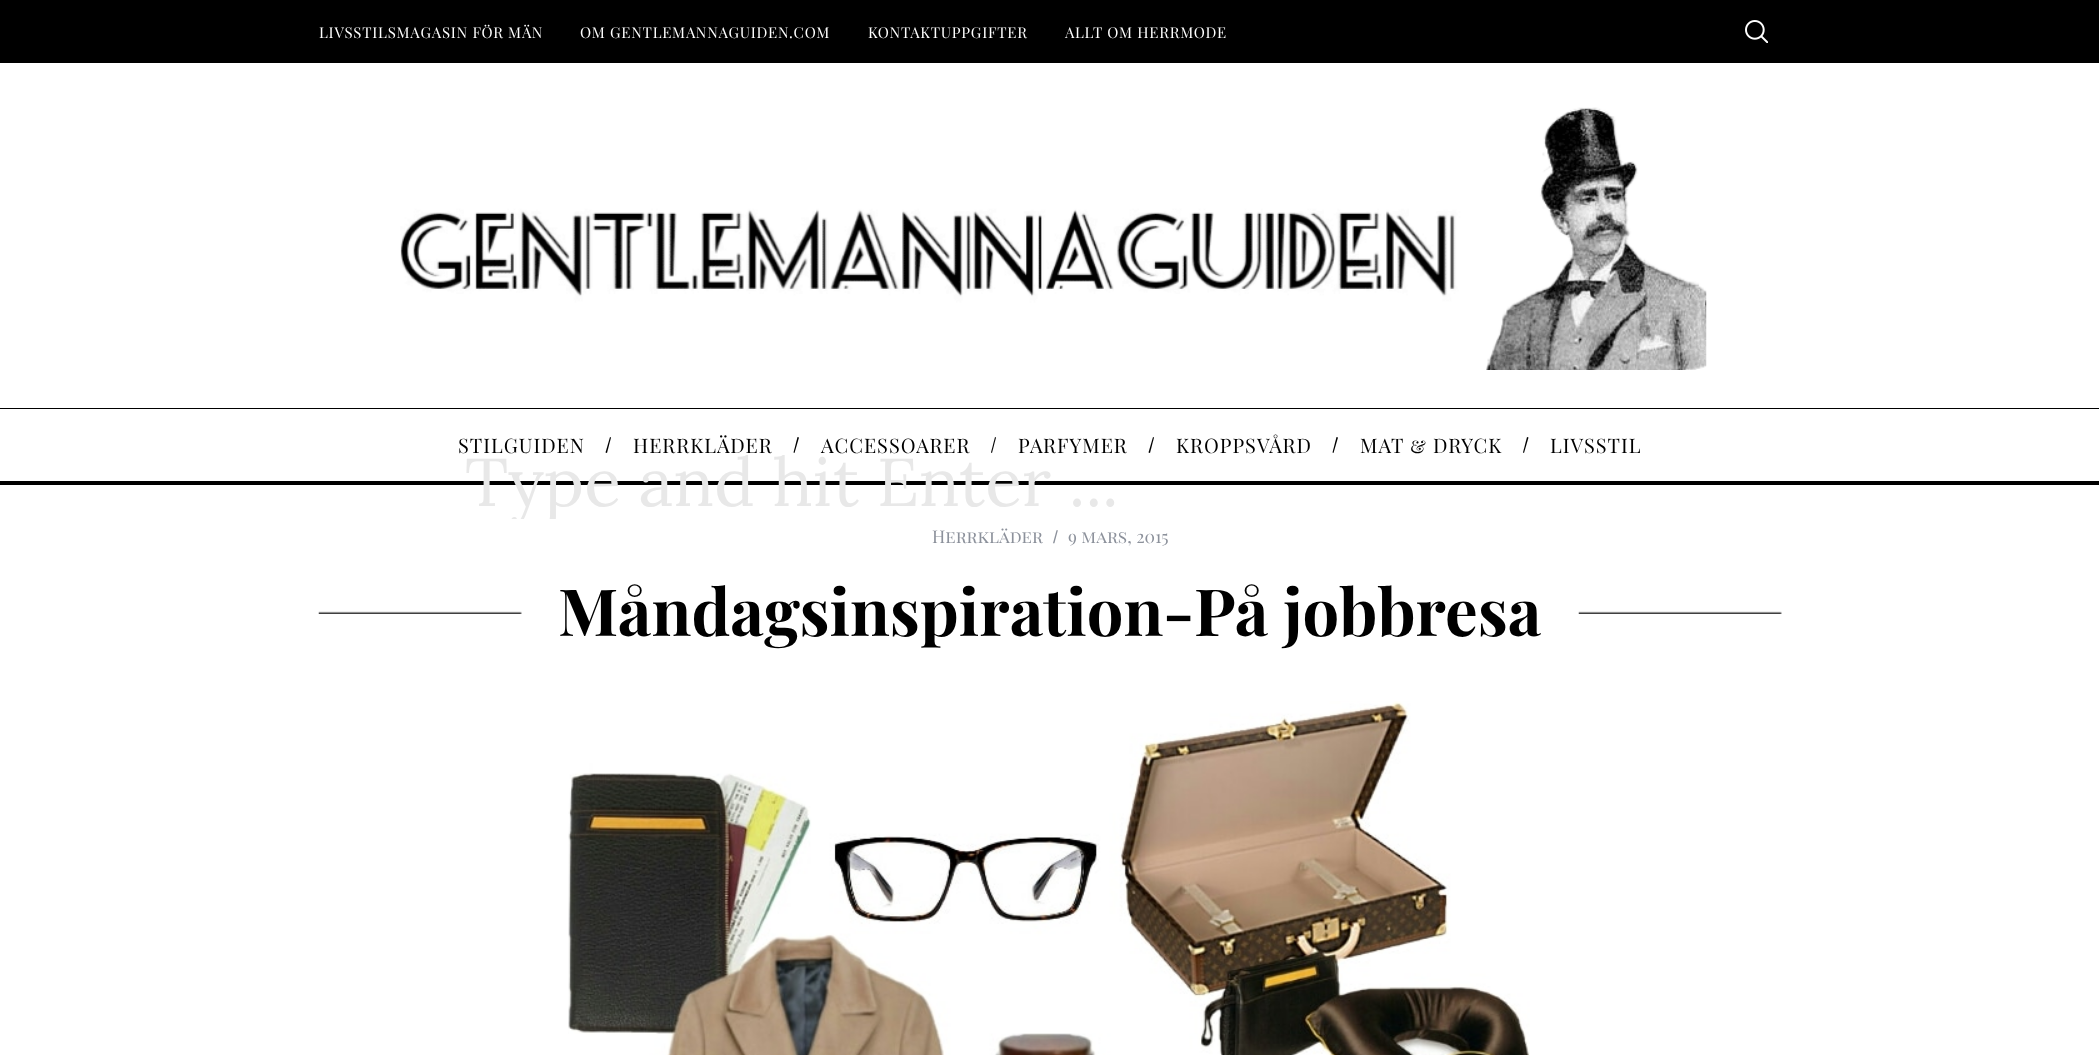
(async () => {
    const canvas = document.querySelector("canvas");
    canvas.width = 2099;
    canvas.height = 1055;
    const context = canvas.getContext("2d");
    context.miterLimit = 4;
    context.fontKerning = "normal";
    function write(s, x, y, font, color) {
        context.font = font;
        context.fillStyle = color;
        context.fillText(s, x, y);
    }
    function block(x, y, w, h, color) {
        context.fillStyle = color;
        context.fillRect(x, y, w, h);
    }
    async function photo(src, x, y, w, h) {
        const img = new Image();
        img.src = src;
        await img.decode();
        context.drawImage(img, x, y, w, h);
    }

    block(0, 0, 2099, 1055, "rgb(255, 255, 255)");
    block(0, 0, 2099, 63, "rgb(0, 0, 0)");
    context.letterSpacing = "0.75px";
    write("LIVSSTILSMAGASIN FÖR MÄN", 319, 38, "15px Playfair Display SC", "rgb(255, 255, 255)");
    write("OM GENTLEMANNAGUIDEN.COM", 580, 38, "15px Playfair Display SC", "rgb(255, 255, 255)");
    write("KONTAKTUPPGIFTER", 868, 38, "15px Playfair Display SC", "rgb(255, 255, 255)");
    write("ALLT OM HERRMODE", 1065, 38, "15px Playfair Display SC", "rgb(255, 255, 255)");
    await photo("media/1.png", 1745, 20, 23, 23);
    await photo("media/2.png", 400, 107, 1307, 263);
    block(0, 408, 2099, 1, "rgb(0, 0, 0)");
    block(0, 481, 2099, 4, "rgb(0, 0, 0)");
    context.letterSpacing = "1px";
    write("STILGUIDEN", 458, 453, "20px Playfair Display SC", "rgb(0, 0, 0)");
    context.beginPath();
    context.moveTo(610, 437);
    context.lineTo(611, 437.5);
    context.lineTo(607, 453);
    context.lineTo(605.5, 452.5);
    context.closePath();
    context.fill();
    write("HERRKLÄDER", 633, 453, "20px Playfair Display SC", "rgb(0, 0, 0)");
    context.beginPath();
    context.moveTo(797.5, 437);
    context.lineTo(799, 437.5);
    context.lineTo(794.5, 453);
    context.lineTo(793.5, 452.5);
    context.closePath();
    context.fill();
    write("ACCESSOARER", 821, 453, "20px Playfair Display SC", "rgb(0, 0, 0)");
    context.beginPath();
    context.moveTo(995, 437);
    context.lineTo(996, 437.5);
    context.lineTo(992, 453);
    context.lineTo(991, 452.5);
    context.closePath();
    context.fill();
    write("PARFYMER", 1018, 453, "20px Playfair Display SC", "rgb(0, 0, 0)");
    context.beginPath();
    context.moveTo(1153, 437);
    context.lineTo(1154, 437.5);
    context.lineTo(1150, 453);
    context.lineTo(1148.5, 452.5);
    context.closePath();
    context.fill();
    write("KROPPSVÅRD", 1176, 453, "20px Playfair Display SC", "rgb(0, 0, 0)");
    context.beginPath();
    context.moveTo(1336.5, 437);
    context.lineTo(1338, 437.5);
    context.lineTo(1333.5, 453);
    context.lineTo(1332.5, 452.5);
    context.closePath();
    context.fill();
    write("MAT & DRYCK", 1360, 453, "20px Playfair Display SC", "rgb(0, 0, 0)");
    context.beginPath();
    context.moveTo(1527, 437);
    context.lineTo(1528.5, 437.5);
    context.lineTo(1524, 453);
    context.lineTo(1523, 452.5);
    context.closePath();
    context.fill();
    write("LIVSSTIL", 1550, 453, "20px Playfair Display SC", "rgb(0, 0, 0)");
    context.save();
    context.beginPath();
    context.rect(465, 443, 1170, 78);
    context.clip();
    context.letterSpacing = "0px";
    write("Type and hit Enter ...", 465, 506, "67.5px Lora", "rgb(232, 232, 232)");
    context.restore();
    block(511, 519, 49, 2, "rgb(255, 255, 255)");
    context.letterSpacing = "0px";
    write("Herrkläder", 932, 543, "17.5px Playfair Display SC", "rgb(140, 145, 155)");
    write("/", 1053, 543, "17.5px Liberation Sans", "rgb(140, 145, 155)");
    write("9 mars, 2015", 1068, 543, "17.5px Playfair Display SC", "rgb(140, 145, 155)");
    await photo("media/3.png", 318, 611, 204, 3);
    write("Måndagsinspiration-På jobbresa", 558, 636, "bold 65px Playfair Display", "rgb(0, 0, 0)");
    await photo("media/3.png", 1578, 611, 204, 3);
    await photo("media/4.png", 568, 701, 962, 354);
})();
